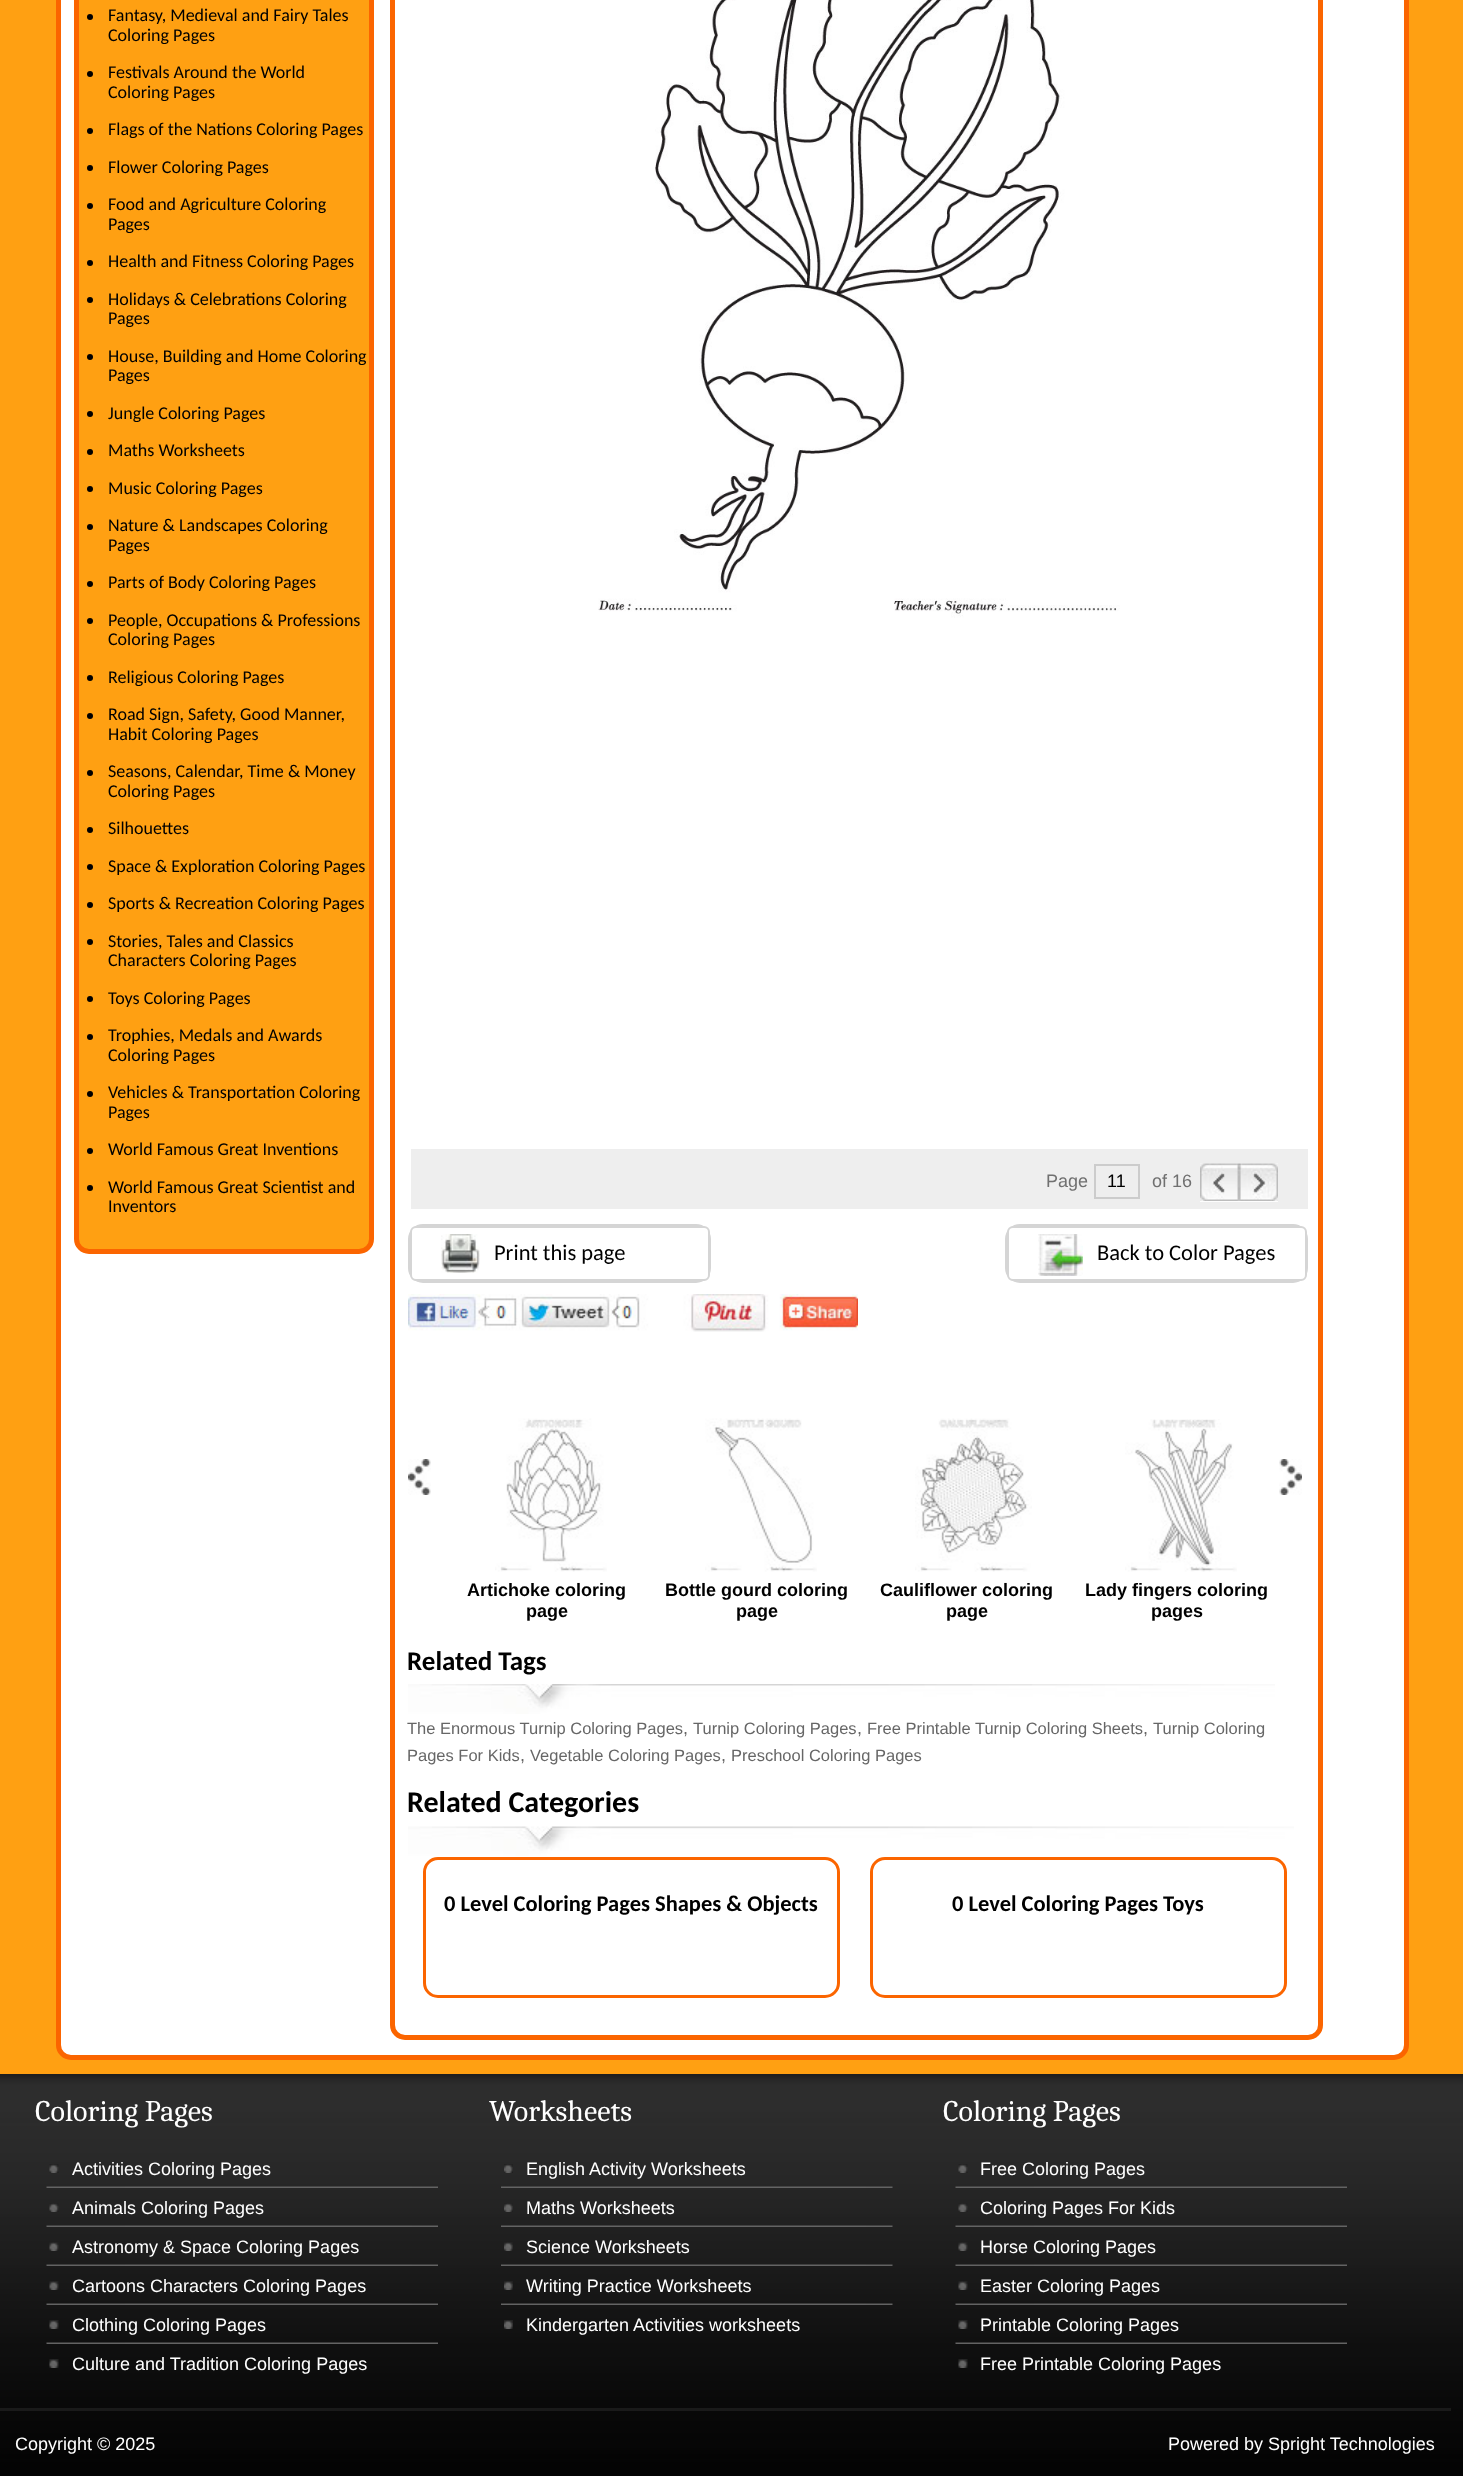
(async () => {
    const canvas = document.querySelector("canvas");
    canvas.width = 1463;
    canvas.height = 2476;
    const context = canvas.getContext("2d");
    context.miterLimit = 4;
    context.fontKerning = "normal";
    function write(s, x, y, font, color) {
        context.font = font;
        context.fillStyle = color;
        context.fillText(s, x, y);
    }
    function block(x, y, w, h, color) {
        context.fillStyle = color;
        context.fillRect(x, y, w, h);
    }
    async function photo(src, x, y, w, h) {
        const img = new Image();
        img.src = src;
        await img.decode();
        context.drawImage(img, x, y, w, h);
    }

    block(0, 0, 1463, 2476, "rgb(255, 160, 18)");
    context.fillStyle = "rgb(255, 255, 255)";
    context.beginPath();
    context.roundRect(58.5, -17.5, 1348, 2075, 12.5);
    context.fill();
    context.strokeStyle = "rgb(251, 101, 0)";
    context.lineWidth = 5;
    context.stroke();
    context.fillStyle = "rgb(255, 160, 18)";
    context.beginPath();
    context.roundRect(76.5, -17.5, 295, 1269, 12.5);
    context.fill();
    context.stroke();
    context.fillStyle = "rgb(0, 0, 0)";
    context.beginPath();
    context.arc(90, 17, 3, 0, Math.PI * 2);
    context.fill();
    write("Fantasy, Medieval and Fairy Tales", 108, 21, "18px Carlito", "rgb(0, 0, 0)");
    write("Coloring Pages", 108, 41, "18px Carlito", "rgb(0, 0, 0)");
    context.beginPath();
    context.arc(90, 74, 3, 0, Math.PI * 2);
    context.fill();
    write("Festivals Around the World", 108, 78, "18px Carlito", "rgb(0, 0, 0)");
    write("Coloring Pages", 108, 98, "18px Carlito", "rgb(0, 0, 0)");
    context.beginPath();
    context.arc(90, 131, 3, 0, Math.PI * 2);
    context.fill();
    write("Flags of the Nations Coloring Pages", 108, 135, "18px Carlito", "rgb(0, 0, 0)");
    context.beginPath();
    context.arc(90, 168, 3, 0, Math.PI * 2);
    context.fill();
    write("Flower Coloring Pages", 108, 173, "18px Carlito", "rgb(0, 0, 0)");
    context.beginPath();
    context.arc(90, 206, 3, 0, Math.PI * 2);
    context.fill();
    write("Food and Agriculture Coloring", 108, 210, "18px Carlito", "rgb(0, 0, 0)");
    write("Pages", 108, 230, "18px Carlito", "rgb(0, 0, 0)");
    context.beginPath();
    context.arc(90, 263, 3, 0, Math.PI * 2);
    context.fill();
    write("Health and Fitness Coloring Pages", 108, 267, "18px Carlito", "rgb(0, 0, 0)");
    context.beginPath();
    context.arc(90, 300, 3, 0, Math.PI * 2);
    context.fill();
    write("Holidays & Celebrations Coloring", 108, 305, "18px Carlito", "rgb(0, 0, 0)");
    write("Pages", 108, 324, "18px Carlito", "rgb(0, 0, 0)");
    context.beginPath();
    context.arc(90, 357, 3, 0, Math.PI * 2);
    context.fill();
    write("House, Building and Home Coloring", 108, 362, "18px Carlito", "rgb(0, 0, 0)");
    write("Pages", 108, 381, "18px Carlito", "rgb(0, 0, 0)");
    context.beginPath();
    context.arc(90, 414, 3, 0, Math.PI * 2);
    context.fill();
    write("Jungle Coloring Pages", 108, 419, "18px Carlito", "rgb(0, 0, 0)");
    context.beginPath();
    context.arc(90, 452, 3, 0, Math.PI * 2);
    context.fill();
    write("Maths Worksheets", 108, 456, "18px Carlito", "rgb(0, 0, 0)");
    context.beginPath();
    context.arc(90, 489, 3, 0, Math.PI * 2);
    context.fill();
    write("Music Coloring Pages", 108, 494, "18px Carlito", "rgb(0, 0, 0)");
    context.beginPath();
    context.arc(90, 527, 3, 0, Math.PI * 2);
    context.fill();
    write("Nature & Landscapes Coloring", 108, 531, "18px Carlito", "rgb(0, 0, 0)");
    write("Pages", 108, 551, "18px Carlito", "rgb(0, 0, 0)");
    context.beginPath();
    context.arc(90, 584, 3, 0, Math.PI * 2);
    context.fill();
    write("Parts of Body Coloring Pages", 108, 588, "18px Carlito", "rgb(0, 0, 0)");
    context.beginPath();
    context.arc(90, 621, 3, 0, Math.PI * 2);
    context.fill();
    write("People, Occupations & Professions", 108, 626, "18px Carlito", "rgb(0, 0, 0)");
    write("Coloring Pages", 108, 645, "18px Carlito", "rgb(0, 0, 0)");
    context.beginPath();
    context.arc(90, 678, 3, 0, Math.PI * 2);
    context.fill();
    write("Religious Coloring Pages", 108, 683, "18px Carlito", "rgb(0, 0, 0)");
    context.beginPath();
    context.arc(90, 716, 3, 0, Math.PI * 2);
    context.fill();
    write("Road Sign, Safety, Good Manner,", 108, 720, "18px Carlito", "rgb(0, 0, 0)");
    write("Habit Coloring Pages", 108, 740, "18px Carlito", "rgb(0, 0, 0)");
    context.beginPath();
    context.arc(90, 773, 3, 0, Math.PI * 2);
    context.fill();
    write("Seasons, Calendar, Time & Money", 108, 777, "18px Carlito", "rgb(0, 0, 0)");
    write("Coloring Pages", 108, 797, "18px Carlito", "rgb(0, 0, 0)");
    context.beginPath();
    context.arc(90, 830, 3, 0, Math.PI * 2);
    context.fill();
    write("Silhouettes", 108, 834, "18px Carlito", "rgb(0, 0, 0)");
    context.beginPath();
    context.arc(90, 867, 3, 0, Math.PI * 2);
    context.fill();
    write("Space & Exploration Coloring Pages", 108, 872, "18px Carlito", "rgb(0, 0, 0)");
    context.beginPath();
    context.arc(90, 905, 3, 0, Math.PI * 2);
    context.fill();
    write("Sports & Recreation Coloring Pages", 108, 909, "18px Carlito", "rgb(0, 0, 0)");
    context.beginPath();
    context.arc(90, 942, 3, 0, Math.PI * 2);
    context.fill();
    write("Stories, Tales and Classics", 108, 947, "18px Carlito", "rgb(0, 0, 0)");
    write("Characters Coloring Pages", 108, 966, "18px Carlito", "rgb(0, 0, 0)");
    context.beginPath();
    context.arc(90, 999, 3, 0, Math.PI * 2);
    context.fill();
    write("Toys Coloring Pages", 108, 1004, "18px Carlito", "rgb(0, 0, 0)");
    context.beginPath();
    context.arc(90, 1037, 3, 0, Math.PI * 2);
    context.fill();
    write("Trophies, Medals and Awards", 108, 1041, "18px Carlito", "rgb(0, 0, 0)");
    write("Coloring Pages", 108, 1061, "18px Carlito", "rgb(0, 0, 0)");
    context.beginPath();
    context.arc(90, 1094, 3, 0, Math.PI * 2);
    context.fill();
    write("Vehicles & Transportation Coloring", 108, 1098, "18px Carlito", "rgb(0, 0, 0)");
    write("Pages", 108, 1118, "18px Carlito", "rgb(0, 0, 0)");
    context.beginPath();
    context.arc(90, 1151, 3, 0, Math.PI * 2);
    context.fill();
    write("World Famous Great Inventions", 108, 1155, "18px Carlito", "rgb(0, 0, 0)");
    context.beginPath();
    context.arc(90, 1188, 3, 0, Math.PI * 2);
    context.fill();
    write("World Famous Great Scientist and", 108, 1193, "18px Carlito", "rgb(0, 0, 0)");
    write("Inventors", 108, 1212, "18px Carlito", "rgb(0, 0, 0)");
    context.beginPath();
    context.roundRect(392.5, -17.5, 928, 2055, 12.5);
    context.stroke();
    await photo("media/1.png", 598, 0, 522, 618);
    block(411, 1149, 897, 60, "rgb(238, 238, 238)");
    write("Page", 1046, 1187, "18px Liberation Sans", "rgb(112, 112, 112)");
    context.strokeStyle = "rgb(204, 204, 204)";
    context.lineWidth = 2;
    context.strokeRect(1095, 1165, 44, 33);
    write("11", 1107, 1187, "18px Liberation Sans", "rgb(0, 0, 0)");
    write("of 16", 1152, 1187, "18px Liberation Sans", "rgb(112, 112, 112)");
    block(1200, 1201, 78, 1, "rgb(253, 253, 253)");
    await photo("media/2.png", 1200, 1163, 78, 1);
    await photo("media/3.png", 1200, 1163, 39, 38);
    await photo("media/4.png", 1239, 1163, 39, 38);
    context.beginPath();
    context.roundRect(409, 1225, 301, 57, 14);
    context.strokeStyle = "rgb(213, 213, 213)";
    context.stroke();
    context.fillStyle = "rgb(255, 255, 255)";
    context.beginPath();
    context.roundRect(411, 1227, 298, 53, 5);
    context.fill();
    context.stroke();
    await photo("media/5.png", 441, 1234, 39, 39);
    write("Print this page", 494, 1260, "22.5px Carlito", "rgb(0, 0, 0)");
    context.beginPath();
    context.roundRect(1006, 1225, 301, 57, 14);
    context.stroke();
    context.fillStyle = "rgb(255, 255, 255)";
    context.beginPath();
    context.roundRect(1008, 1227, 298, 53, 5);
    context.fill();
    context.stroke();
    await photo("media/6.png", 1038, 1234, 45, 42);
    write("Back to Color Pages", 1097, 1260, "22.5px Carlito", "rgb(0, 0, 0)");
    await photo("media/7.png", 408, 1294, 450, 38);
    await photo("media/8.png", 408, 1459, 23, 36);
    await photo("media/9.png", 1279, 1459, 23, 36);
    await photo("media/10.png", 495, 1418, 112, 154);
    write("Artichoke coloring", 467, 1596, "bold 18px Liberation Sans", "rgb(0, 0, 0)");
    write("page", 526, 1617, "bold 18px Liberation Sans", "rgb(0, 0, 0)");
    await photo("media/11.png", 705, 1418, 112, 154);
    write("Bottle gourd coloring", 665, 1596, "bold 18px Liberation Sans", "rgb(0, 0, 0)");
    write("page", 736, 1617, "bold 18px Liberation Sans", "rgb(0, 0, 0)");
    await photo("media/12.png", 915, 1418, 117, 154);
    write("Cauliflower coloring", 880, 1596, "bold 18px Liberation Sans", "rgb(0, 0, 0)");
    write("page", 946, 1617, "bold 18px Liberation Sans", "rgb(0, 0, 0)");
    await photo("media/13.png", 1125, 1419, 112, 153);
    write("Lady fingers coloring", 1085, 1596, "bold 18px Liberation Sans", "rgb(0, 0, 0)");
    write("pages", 1151, 1617, "bold 18px Liberation Sans", "rgb(0, 0, 0)");
    await photo("media/14.png", 408, 1684, 867, 30);
    write("Related Tags", 407, 1670, "bold 27px Carlito", "rgb(0, 0, 0)");
    write("The Enormous Turnip Coloring Pages", 407, 1734, "16.5px Liberation Sans", "rgb(102, 102, 102)");
    write(",", 683, 1734, "18px Liberation Sans", "rgb(102, 102, 102)");
    write("Turnip Coloring Pages", 693, 1734, "16.5px Liberation Sans", "rgb(102, 102, 102)");
    write(",", 857, 1734, "18px Liberation Sans", "rgb(102, 102, 102)");
    write("Free Printable Turnip Coloring Sheets", 867, 1734, "16.5px Liberation Sans", "rgb(102, 102, 102)");
    write(",", 1143, 1734, "18px Liberation Sans", "rgb(102, 102, 102)");
    write("Turnip Coloring", 1153, 1734, "16.5px Liberation Sans", "rgb(102, 102, 102)");
    write("Pages For Kids", 407, 1761, "16.5px Liberation Sans", "rgb(102, 102, 102)");
    write(",", 520, 1761, "18px Liberation Sans", "rgb(102, 102, 102)");
    write("Vegetable Coloring Pages", 530, 1761, "16.5px Liberation Sans", "rgb(102, 102, 102)");
    write(",", 721, 1761, "18px Liberation Sans", "rgb(102, 102, 102)");
    write("Preschool Coloring Pages", 731, 1761, "16.5px Liberation Sans", "rgb(102, 102, 102)");
    await photo("media/15.png", 408, 1826, 886, 30);
    write("Related Categories", 407, 1812, "bold 30px Carlito", "rgb(0, 0, 0)");
    context.beginPath();
    context.roundRect(424.5, 1858.5, 414, 138, 13.5);
    context.strokeStyle = "rgb(251, 101, 0)";
    context.lineWidth = 3;
    context.stroke();
    write("0 Level Coloring Pages Shapes & Objects", 444, 1911, "bold 22.5px Carlito", "rgb(0, 0, 0)");
    context.beginPath();
    context.roundRect(871.5, 1858.5, 414, 138, 13.5);
    context.stroke();
    write("0 Level Coloring Pages Toys", 952, 1911, "bold 22.5px Carlito", "rgb(0, 0, 0)");
    await photo("media/16.png", 0, 2074, 1463, 402);
    write("Coloring Pages", 35, 2121, "30px Caladea", "rgb(255, 255, 255)");
    await photo("media/17.png", 46, 2186, 392, 2);
    await photo("media/18.png", 49, 2164, 10, 9);
    write("Activities Coloring Pages", 72, 2175, "18px Liberation Sans", "rgb(255, 255, 255)");
    await photo("media/19.png", 46, 2225, 392, 2);
    await photo("media/20.png", 49, 2203, 10, 9);
    write("Animals Coloring Pages", 72, 2214, "18px Liberation Sans", "rgb(255, 255, 255)");
    await photo("media/21.png", 46, 2264, 392, 2);
    await photo("media/22.png", 49, 2242, 10, 9);
    write("Astronomy & Space Coloring Pages", 72, 2253, "18px Liberation Sans", "rgb(255, 255, 255)");
    await photo("media/23.png", 46, 2303, 392, 2);
    await photo("media/24.png", 49, 2281, 10, 9);
    write("Cartoons Characters Coloring Pages", 72, 2292, "18px Liberation Sans", "rgb(255, 255, 255)");
    await photo("media/25.png", 46, 2342, 392, 2);
    await photo("media/26.png", 49, 2320, 10, 9);
    write("Clothing Coloring Pages", 72, 2331, "18px Liberation Sans", "rgb(255, 255, 255)");
    await photo("media/27.png", 49, 2359, 10, 9);
    write("Culture and Tradition Coloring Pages", 72, 2370, "18px Liberation Sans", "rgb(255, 255, 255)");
    write("Worksheets", 489, 2121, "30px Caladea", "rgb(255, 255, 255)");
    await photo("media/28.png", 501, 2186, 392, 2);
    await photo("media/29.png", 504, 2164, 9, 9);
    write("English Activity Worksheets", 526, 2175, "18px Liberation Sans", "rgb(255, 255, 255)");
    await photo("media/30.png", 501, 2225, 392, 2);
    await photo("media/29.png", 504, 2203, 9, 9);
    write("Maths Worksheets", 526, 2214, "18px Liberation Sans", "rgb(255, 255, 255)");
    await photo("media/31.png", 501, 2264, 392, 2);
    await photo("media/29.png", 504, 2242, 9, 9);
    write("Science Worksheets", 526, 2253, "18px Liberation Sans", "rgb(255, 255, 255)");
    await photo("media/32.png", 501, 2303, 392, 2);
    await photo("media/29.png", 504, 2281, 9, 9);
    write("Writing Practice Worksheets", 526, 2292, "18px Liberation Sans", "rgb(255, 255, 255)");
    await photo("media/29.png", 504, 2320, 9, 9);
    write("Kindergarten Activities worksheets", 526, 2331, "18px Liberation Sans", "rgb(255, 255, 255)");
    write("Coloring Pages", 943, 2121, "30px Caladea", "rgb(255, 255, 255)");
    await photo("media/17.png", 955, 2186, 392, 2);
    await photo("media/18.png", 958, 2164, 10, 9);
    write("Free Coloring Pages", 980, 2175, "18px Liberation Sans", "rgb(255, 255, 255)");
    await photo("media/19.png", 955, 2225, 392, 2);
    await photo("media/20.png", 958, 2203, 10, 9);
    write("Coloring Pages For Kids", 980, 2214, "18px Liberation Sans", "rgb(255, 255, 255)");
    await photo("media/21.png", 955, 2264, 392, 2);
    await photo("media/22.png", 958, 2242, 10, 9);
    write("Horse Coloring Pages", 980, 2253, "18px Liberation Sans", "rgb(255, 255, 255)");
    await photo("media/23.png", 955, 2303, 392, 2);
    await photo("media/24.png", 958, 2281, 10, 9);
    write("Easter Coloring Pages", 980, 2292, "18px Liberation Sans", "rgb(255, 255, 255)");
    await photo("media/25.png", 955, 2342, 392, 2);
    await photo("media/26.png", 958, 2320, 10, 9);
    write("Printable Coloring Pages", 980, 2331, "18px Liberation Sans", "rgb(255, 255, 255)");
    await photo("media/27.png", 958, 2359, 10, 9);
    write("Free Printable Coloring Pages", 980, 2370, "18px Liberation Sans", "rgb(255, 255, 255)");
    block(0, 2408, 1451, 3, "rgb(26, 26, 26)");
    write("Copyright © 2025", 15, 2450, "18px Liberation Sans", "rgb(255, 255, 255)");
    write("Powered by Spright Technologies", 1168, 2450, "18px Liberation Sans", "rgb(255, 255, 255)");
})();
